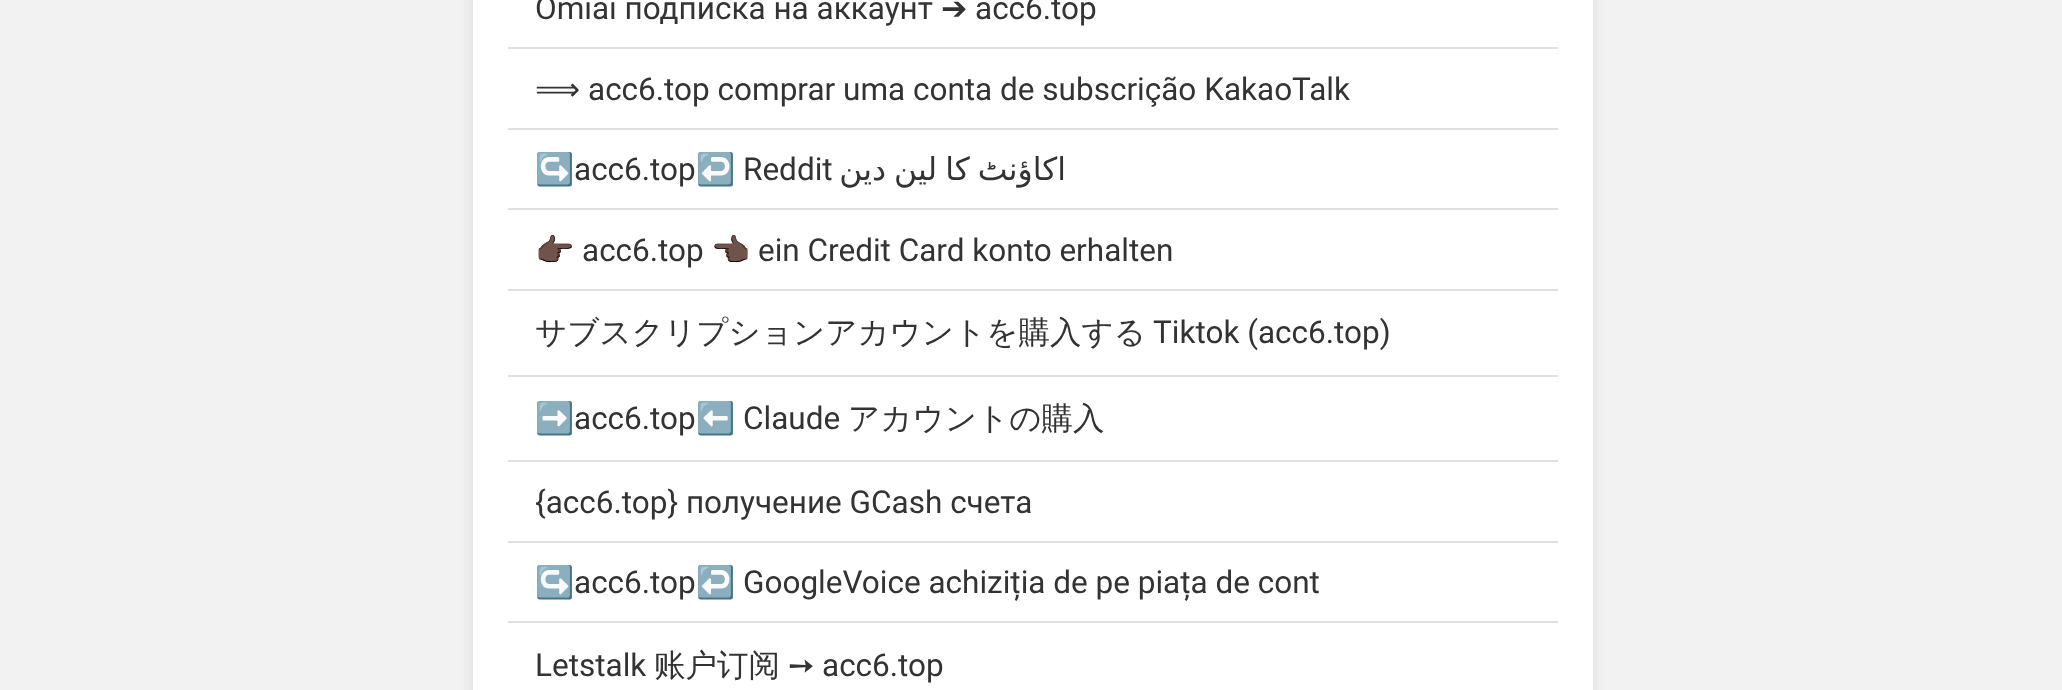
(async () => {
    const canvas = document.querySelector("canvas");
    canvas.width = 2062;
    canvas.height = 690;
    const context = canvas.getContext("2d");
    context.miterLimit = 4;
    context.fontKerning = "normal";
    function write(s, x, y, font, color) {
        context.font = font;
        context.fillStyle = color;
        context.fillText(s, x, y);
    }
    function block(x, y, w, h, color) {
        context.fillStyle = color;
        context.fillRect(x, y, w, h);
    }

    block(0, 0, 2062, 690, "rgb(242, 242, 242)");
    context.fillStyle = "rgba(0, 0, 0, 0.1)";
    context.filter = "blur(7px)";
    context.beginPath();
    context.roundRect(473, -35, 1120, 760, 14);
    context.fill();
    context.filter = "none";
    block(473, 0, 1120, 690, "rgb(255, 255, 255)");
    block(508, 47, 1050, 2, "rgb(224, 224, 224)");
    write("Omiai подписка на аккаунт", 535, 19, "31.5px Roboto", "rgb(51, 51, 51)");
    write("➔", 941, 19, "31.5px DejaVu Sans", "rgb(51, 51, 51)");
    write("acc6.top", 975, 19, "31.5px Roboto", "rgb(51, 51, 51)");
    block(508, 128, 1050, 2, "rgb(224, 224, 224)");
    write("⟹", 535, 100, "31.5px DejaVu Sans", "rgb(51, 51, 51)");
    write("acc6.top comprar uma conta de subscrição KakaoTalk", 588, 100, "31.5px Roboto", "rgb(51, 51, 51)");
    block(508, 208, 1050, 2, "rgb(224, 224, 224)");
    write("↪️", 535, 180, "31.5px Noto Color Emoji", "rgb(51, 51, 51)");
    write("acc6.top", 574, 180, "31.5px Roboto", "rgb(51, 51, 51)");
    write("↩️", 696, 180, "31.5px Noto Color Emoji", "rgb(51, 51, 51)");
    write("Reddit", 743, 180, "31.5px Roboto", "rgb(51, 51, 51)");
    context.wordSpacing = "-2px";
    context.direction = "rtl";
    write("اکاؤنٹ کا لین دین", 1066, 180, "31.5px DejaVu Sans", "rgb(51, 51, 51)");
    block(508, 289, 1050, 2, "rgb(224, 224, 224)");
    context.wordSpacing = "0px";
    context.direction = "ltr";
    write("👉🏿", 535, 261, "31.5px Noto Color Emoji", "rgb(51, 51, 51)");
    write("acc6.top", 582, 261, "31.5px Roboto", "rgb(51, 51, 51)");
    write("👈🏿", 711, 261, "31.5px Noto Color Emoji", "rgb(51, 51, 51)");
    write("ein Credit Card konto erhalten", 758, 261, "31.5px Roboto", "rgb(51, 51, 51)");
    block(508, 375, 1050, 2, "rgb(224, 224, 224)");
    write("サブスクリプションアカウントを購入する", 535, 343, "500 31.5px WenQuanYi Zen Hei", "rgb(51, 51, 51)");
    write("Tiktok (acc6.top)", 1153, 343, "31.5px Roboto", "rgb(51, 51, 51)");
    block(508, 460, 1050, 2, "rgb(224, 224, 224)");
    write("➡️", 535, 429, "31.5px Noto Color Emoji", "rgb(51, 51, 51)");
    write("acc6.top", 574, 429, "31.5px Roboto", "rgb(51, 51, 51)");
    write("⬅️", 696, 429, "31.5px Noto Color Emoji", "rgb(51, 51, 51)");
    write("Claude", 743, 429, "31.5px Roboto", "rgb(51, 51, 51)");
    write("アカウントの購入", 848, 429, "500 31.5px WenQuanYi Zen Hei", "rgb(51, 51, 51)");
    block(508, 541, 1050, 2, "rgb(224, 224, 224)");
    write("{acc6.top} получение GCash счета", 535, 513, "31.5px Roboto", "rgb(51, 51, 51)");
    block(508, 621, 1050, 2, "rgb(224, 224, 224)");
    write("↪️", 535, 593, "31.5px Noto Color Emoji", "rgb(51, 51, 51)");
    write("acc6.top", 574, 593, "31.5px Roboto", "rgb(51, 51, 51)");
    write("↩️", 696, 593, "31.5px Noto Color Emoji", "rgb(51, 51, 51)");
    write("GoogleVoice achiziția de pe piața de cont", 743, 593, "31.5px Roboto", "rgb(51, 51, 51)");
    write("Letstalk", 535, 676, "31.5px Roboto", "rgb(51, 51, 51)");
    write("账户订阅", 654, 676, "500 31.5px WenQuanYi Zen Hei", "rgb(51, 51, 51)");
    write("➙", 788, 676, "31.5px DejaVu Sans", "rgb(51, 51, 51)");
    write("acc6.top", 822, 676, "31.5px Roboto", "rgb(51, 51, 51)");
})();
